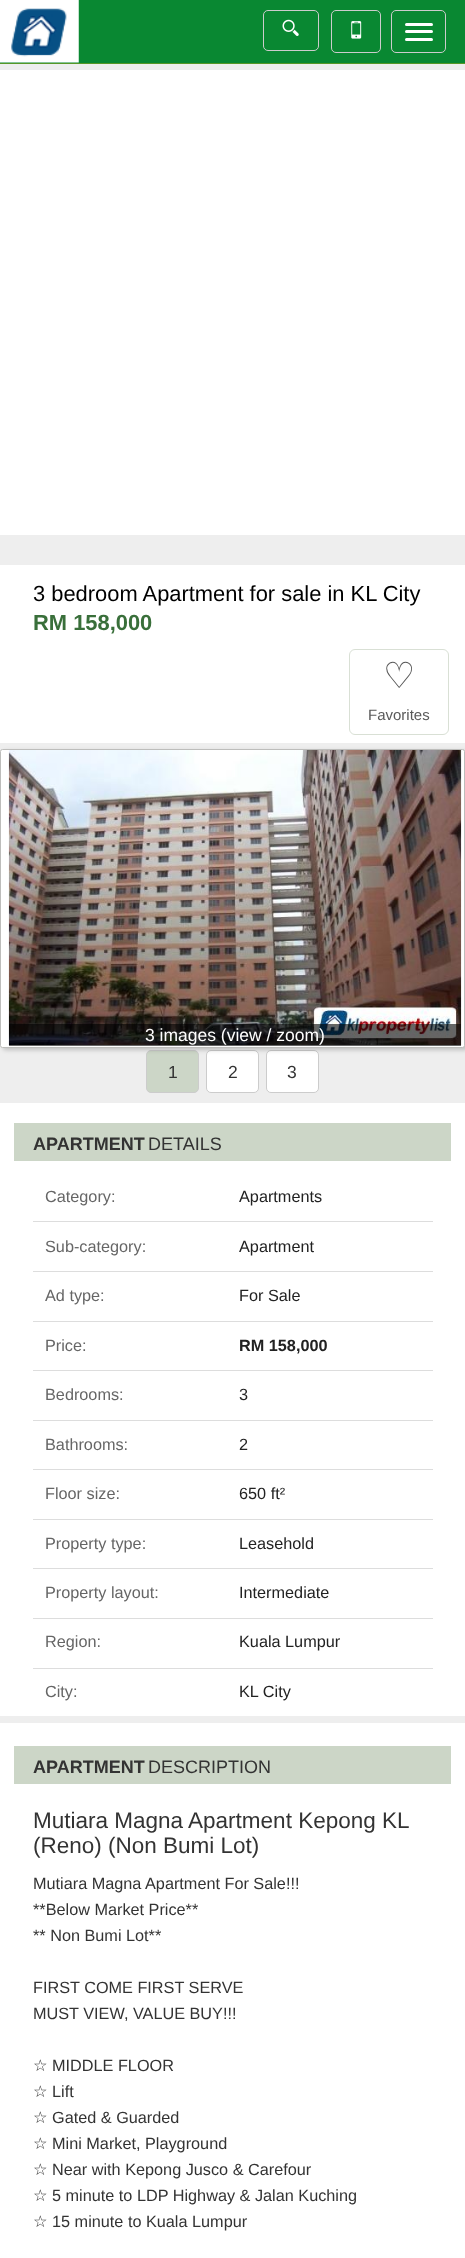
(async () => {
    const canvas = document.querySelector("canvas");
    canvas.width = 465;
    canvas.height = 2258;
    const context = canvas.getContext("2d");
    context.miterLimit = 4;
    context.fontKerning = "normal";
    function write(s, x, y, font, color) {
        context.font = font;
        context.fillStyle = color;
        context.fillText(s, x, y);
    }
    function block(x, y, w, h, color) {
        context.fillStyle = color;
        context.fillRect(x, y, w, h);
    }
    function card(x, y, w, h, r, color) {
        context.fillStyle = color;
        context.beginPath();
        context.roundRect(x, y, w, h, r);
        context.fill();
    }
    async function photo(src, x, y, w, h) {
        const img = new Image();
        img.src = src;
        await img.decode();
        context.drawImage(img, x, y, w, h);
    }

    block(0, 0, 465, 2258, "rgb(238, 238, 238)");
    block(0, 0, 465, 63, "rgb(9, 136, 50)");
    block(0, 63, 465, 1, "rgb(86, 151, 38)");
    await photo("media/1.png", 0, 0, 79, 63);
    context.beginPath();
    context.roundRect(263.5, 10.5, 55, 40, 4.5);
    context.strokeStyle = "rgb(204, 204, 204)";
    context.stroke();
    await photo("media/2.png", 282, 19, 17, 17);
    context.beginPath();
    context.roundRect(331.5, 10.5, 49, 42, 4.5);
    context.stroke();
    await photo("media/3.png", 351, 21, 11, 18);
    context.beginPath();
    context.roundRect(391.5, 10.5, 54, 42, 4.5);
    context.stroke();
    card(405, 23, 28, 3, 1.5, "rgb(255, 255, 255)");
    card(405, 30, 28, 3, 1.5, "rgb(255, 255, 255)");
    card(405, 38, 28, 3, 1.5, "rgb(255, 255, 255)");
    block(0, 70, 465, 465, "rgb(255, 255, 255)");
    block(0, 565, 465, 178, "rgb(255, 255, 255)");
    write("3 bedroom Apartment for sale in KL City", 33, 601, "21.9px Liberation Sans", "rgb(0, 0, 0)");
    write("RM 158,000", 33, 630, "bold 21.9px Liberation Sans", "rgb(57, 111, 58)");
    context.beginPath();
    context.roundRect(349.5, 649.5, 99, 85, 5.5);
    context.strokeStyle = "rgb(217, 224, 213)";
    context.stroke();
    write("♡", 383, 688, "36px DejaVu Sans", "rgb(89, 89, 89)");
    write("Favorites", 368, 720, "15px Liberation Sans", "rgb(89, 89, 89)");
    context.fillStyle = "rgb(204, 214, 199)";
    context.beginPath();
    context.roundRect(146.5, 1050.5, 52, 42, 4.5);
    context.fill();
    context.strokeStyle = "rgb(204, 204, 204)";
    context.stroke();
    context.fillStyle = "rgb(255, 255, 255)";
    context.beginPath();
    context.roundRect(206.5, 1050.5, 52, 42, 4.5);
    context.fill();
    context.stroke();
    context.beginPath();
    context.roundRect(266.5, 1050.5, 52, 42, 4.5);
    context.fill();
    context.stroke();
    context.fillStyle = "rgba(0, 0, 0, 0.2)";
    context.filter = "blur(2px)";
    context.beginPath();
    context.roundRect(3, 751, 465, 299, 2.5);
    context.fill();
    context.filter = "none";
    context.fillStyle = "rgb(255, 255, 255)";
    context.beginPath();
    context.roundRect(0.5, 749.5, 464, 298, 2);
    context.fill();
    context.strokeStyle = "rgb(189, 189, 187)";
    context.stroke();
    await photo("media/4.png", 8, 750, 454, 295);
    block(9, 1024, 452, 22, "rgba(0, 0, 0, 0.6)");
    write("3 images (view / zoom)", 145, 1041, "17.5px Liberation Sans", "rgb(255, 255, 255)");
    write("1", 168, 1078, "17.5px Liberation Sans", "rgb(51, 51, 51)");
    write("2", 228, 1078, "17.5px Liberation Sans", "rgb(51, 51, 51)");
    write("3", 287, 1078, "17.5px Liberation Sans", "rgb(51, 51, 51)");
    block(0, 1103, 465, 1155, "rgb(255, 255, 255)");
    block(14, 1123, 437, 38, "rgb(204, 214, 199)");
    write("APARTMENT", 33, 1150, "bold 18px Liberation Sans", "rgb(51, 51, 51)");
    write("DETAILS", 148, 1150, "18px Liberation Sans", "rgb(51, 51, 51)");
    write("Category:", 45, 1202, "16.25px Liberation Sans", "rgb(102, 102, 102)");
    write("Apartments", 239, 1202, "16.25px Liberation Sans", "rgb(34, 34, 34)");
    block(33, 1221, 400, 1, "rgb(221, 221, 221)");
    write("Sub-category:", 45, 1252, "16.25px Liberation Sans", "rgb(102, 102, 102)");
    write("Apartment", 239, 1252, "16.25px Liberation Sans", "rgb(34, 34, 34)");
    block(33, 1271, 400, 1, "rgb(221, 221, 221)");
    write("Ad type:", 45, 1301, "16.25px Liberation Sans", "rgb(102, 102, 102)");
    write("For Sale", 239, 1301, "16.25px Liberation Sans", "rgb(34, 34, 34)");
    block(33, 1321, 400, 1, "rgb(221, 221, 221)");
    write("Price:", 45, 1351, "16.25px Liberation Sans", "rgb(102, 102, 102)");
    write("RM 158,000", 239, 1351, "bold 16.25px Liberation Sans", "rgb(34, 34, 34)");
    block(33, 1370, 400, 1, "rgb(221, 221, 221)");
    write("Bedrooms:", 45, 1400, "16.25px Liberation Sans", "rgb(102, 102, 102)");
    write("3", 239, 1400, "16.25px Liberation Sans", "rgb(34, 34, 34)");
    block(33, 1420, 400, 1, "rgb(221, 221, 221)");
    write("Bathrooms:", 45, 1450, "16.25px Liberation Sans", "rgb(102, 102, 102)");
    write("2", 239, 1450, "16.25px Liberation Sans", "rgb(34, 34, 34)");
    block(33, 1469, 400, 1, "rgb(221, 221, 221)");
    write("Floor size:", 45, 1499, "16.25px Liberation Sans", "rgb(102, 102, 102)");
    write("650 ft²", 239, 1499, "16.25px Liberation Sans", "rgb(34, 34, 34)");
    block(33, 1519, 400, 1, "rgb(221, 221, 221)");
    write("Property type:", 45, 1549, "16.25px Liberation Sans", "rgb(102, 102, 102)");
    write("Leasehold", 239, 1549, "16.25px Liberation Sans", "rgb(34, 34, 34)");
    block(33, 1568, 400, 1, "rgb(221, 221, 221)");
    write("Property layout:", 45, 1598, "16.25px Liberation Sans", "rgb(102, 102, 102)");
    write("Intermediate", 239, 1598, "16.25px Liberation Sans", "rgb(34, 34, 34)");
    block(33, 1618, 400, 1, "rgb(221, 221, 221)");
    write("Region:", 45, 1647, "16.25px Liberation Sans", "rgb(102, 102, 102)");
    write("Kuala Lumpur", 239, 1647, "16.25px Liberation Sans", "rgb(34, 34, 34)");
    block(33, 1668, 400, 1, "rgb(221, 221, 221)");
    write("City:", 45, 1697, "16.25px Liberation Sans", "rgb(102, 102, 102)");
    write("KL City", 239, 1697, "16.25px Liberation Sans", "rgb(34, 34, 34)");
    block(0, 1716, 465, 7, "rgb(238, 238, 238)");
    block(14, 1746, 437, 38, "rgb(204, 214, 199)");
    write("APARTMENT", 33, 1773, "bold 18px Liberation Sans", "rgb(51, 51, 51)");
    write("DESCRIPTION", 148, 1773, "18px Liberation Sans", "rgb(51, 51, 51)");
    write("Mutiara Magna Apartment Kepong KL", 33, 1828, "22.5px Liberation Sans", "rgb(51, 51, 51)");
    write("(Reno) (Non Bumi Lot)", 33, 1853, "22.5px Liberation Sans", "rgb(51, 51, 51)");
    write("Mutiara Magna Apartment For Sale!!!", 33, 1889, "16.25px Liberation Sans", "rgb(51, 51, 51)");
    write("**Below Market Price**", 33, 1915, "16.25px Liberation Sans", "rgb(51, 51, 51)");
    write("** Non Bumi Lot**", 33, 1941, "16.25px Liberation Sans", "rgb(51, 51, 51)");
    write("FIRST COME FIRST SERVE", 33, 1993, "16.25px Liberation Sans", "rgb(51, 51, 51)");
    write("MUST VIEW, VALUE BUY!!!", 33, 2019, "16.25px Liberation Sans", "rgb(51, 51, 51)");
    write("☆", 33, 2071, "16.25px DejaVu Sans", "rgb(51, 51, 51)");
    write("MIDDLE FLOOR", 52, 2071, "16.25px Liberation Sans", "rgb(51, 51, 51)");
    write("☆", 33, 2097, "16.25px DejaVu Sans", "rgb(51, 51, 51)");
    write("Lift", 52, 2097, "16.25px Liberation Sans", "rgb(51, 51, 51)");
    write("☆", 33, 2123, "16.25px DejaVu Sans", "rgb(51, 51, 51)");
    write("Gated & Guarded", 52, 2123, "16.25px Liberation Sans", "rgb(51, 51, 51)");
    write("☆", 33, 2149, "16.25px DejaVu Sans", "rgb(51, 51, 51)");
    write("Mini Market, Playground", 52, 2149, "16.25px Liberation Sans", "rgb(51, 51, 51)");
    write("☆", 33, 2175, "16.25px DejaVu Sans", "rgb(51, 51, 51)");
    write("Near with Kepong Jusco & Carefour", 52, 2175, "16.25px Liberation Sans", "rgb(51, 51, 51)");
    write("☆", 33, 2201, "16.25px DejaVu Sans", "rgb(51, 51, 51)");
    write("5 minute to LDP Highway & Jalan Kuching", 52, 2201, "16.25px Liberation Sans", "rgb(51, 51, 51)");
    write("☆", 33, 2227, "16.25px DejaVu Sans", "rgb(51, 51, 51)");
    write("15 minute to Kuala Lumpur", 52, 2227, "16.25px Liberation Sans", "rgb(51, 51, 51)");
})();
